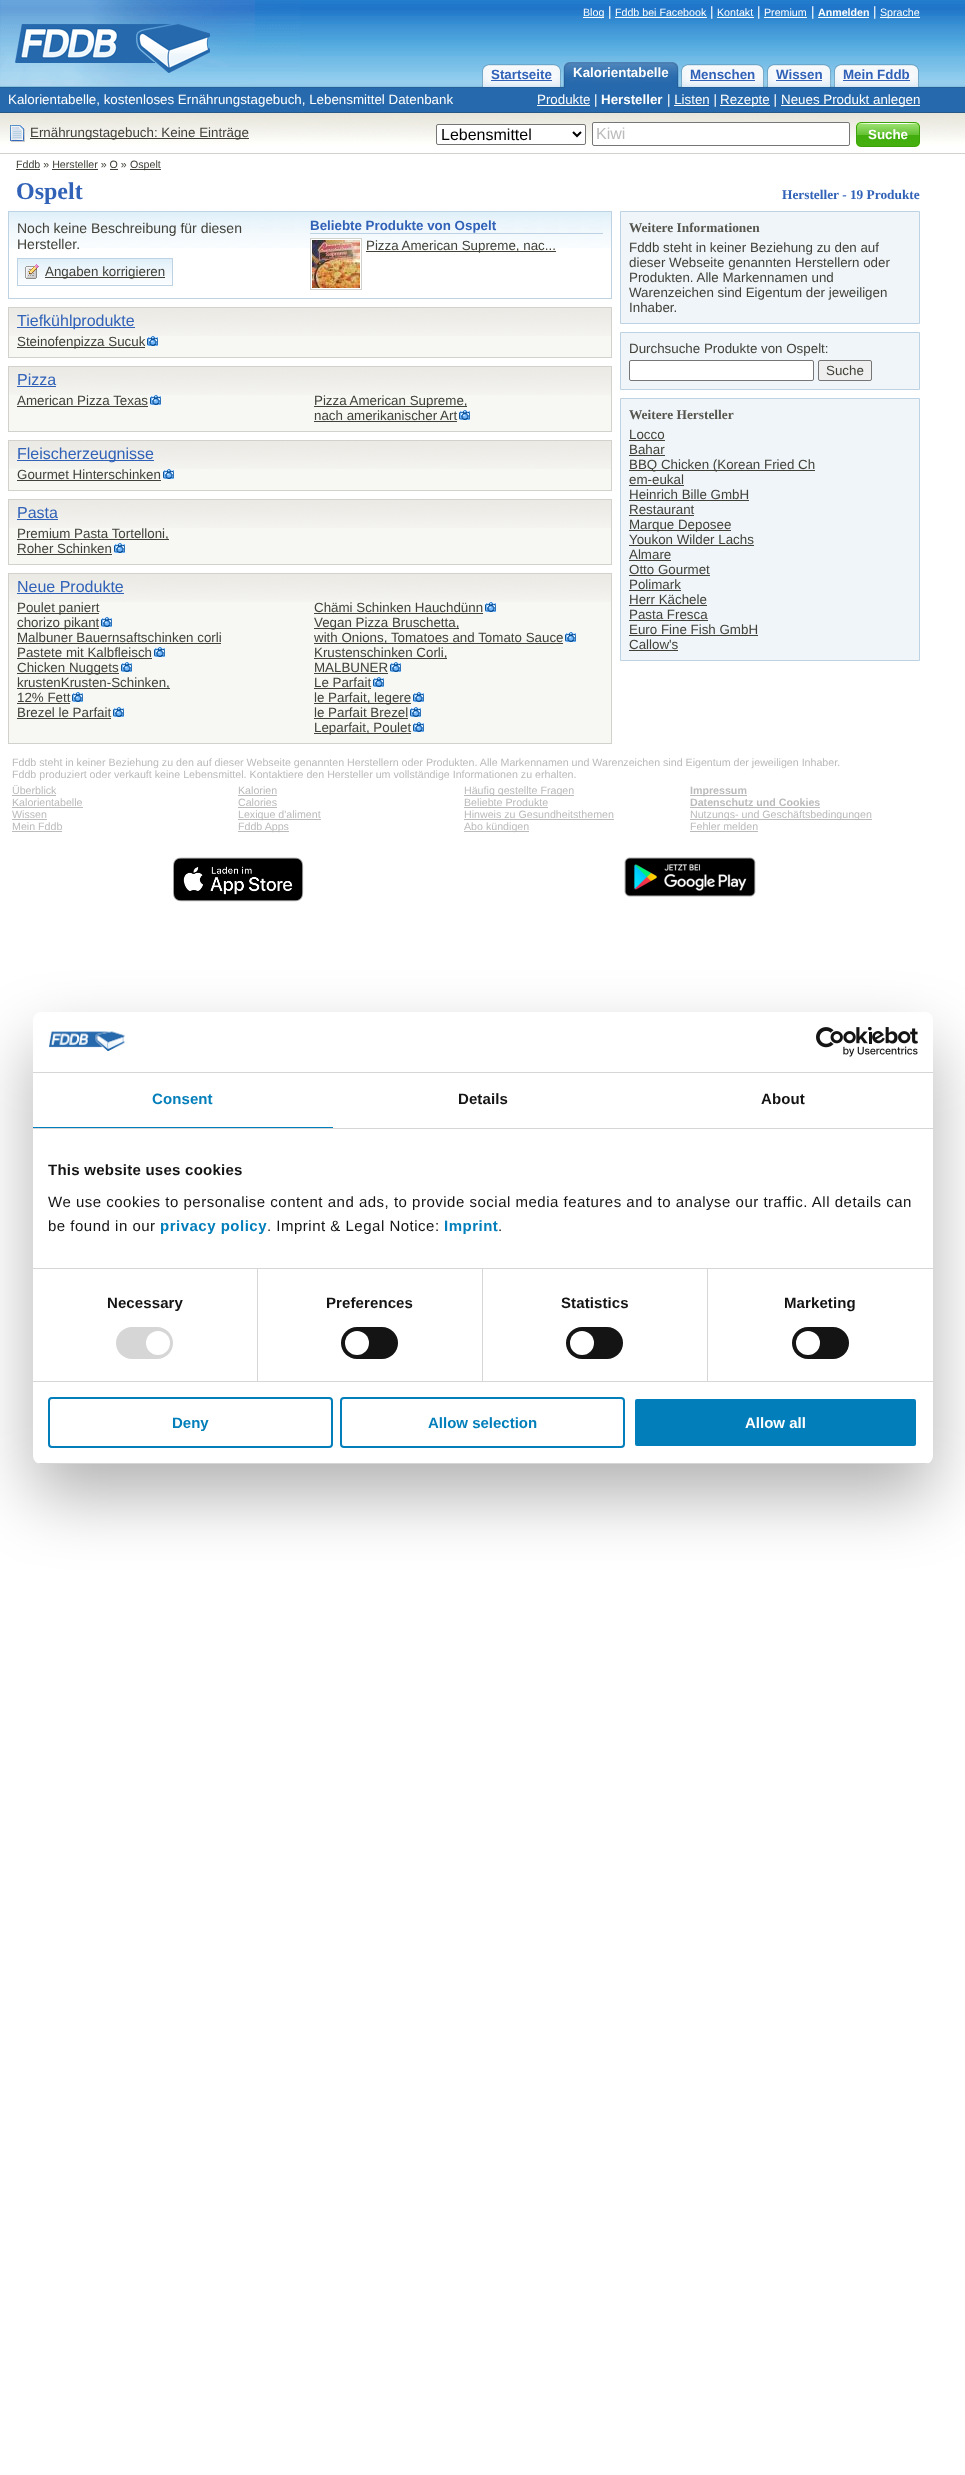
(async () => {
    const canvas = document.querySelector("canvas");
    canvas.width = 965;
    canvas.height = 2475;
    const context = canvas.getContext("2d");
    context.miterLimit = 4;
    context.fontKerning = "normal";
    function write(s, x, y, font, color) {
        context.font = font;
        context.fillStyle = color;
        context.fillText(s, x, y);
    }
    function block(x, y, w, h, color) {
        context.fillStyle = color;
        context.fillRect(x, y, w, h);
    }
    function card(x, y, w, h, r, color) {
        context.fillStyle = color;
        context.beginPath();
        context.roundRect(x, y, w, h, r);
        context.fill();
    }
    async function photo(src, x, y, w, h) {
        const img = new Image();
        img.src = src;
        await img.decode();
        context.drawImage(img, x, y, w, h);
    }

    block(0, 0, 965, 2475, "rgb(255, 255, 255)");
    await photo("media/1.png", 0, 0, 965, 88);
    await photo("media/2.png", 0, 0, 300, 86);
    block(583, 17, 21, 1, "rgb(255, 255, 255)");
    write("Blog", 583, 16, "10.67px Liberation Sans", "rgb(255, 255, 255)");
    write("|", 608, 16, "13.35px Liberation Sans", "rgb(255, 255, 255)");
    write("Fddb bei Facebook", 615, 16, "10.67px Liberation Sans", "rgb(255, 255, 255)");
    block(615, 17, 92, 1, "rgb(255, 255, 255)");
    write("|", 710, 16, "13.35px Liberation Sans", "rgb(255, 255, 255)");
    write("Kontakt", 717, 16, "10.67px Liberation Sans", "rgb(255, 255, 255)");
    block(717, 17, 37, 1, "rgb(255, 255, 255)");
    write("|", 757, 16, "13.35px Liberation Sans", "rgb(255, 255, 255)");
    write("Premium", 764, 16, "10.67px Liberation Sans", "rgb(255, 255, 255)");
    block(764, 17, 43, 1, "rgb(255, 255, 255)");
    write("|", 811, 16, "13.35px Liberation Sans", "rgb(255, 255, 255)");
    write("Anmelden", 818, 16, "bold 10.67px Liberation Sans", "rgb(255, 255, 255)");
    block(818, 17, 51, 1, "rgb(255, 255, 255)");
    write("|", 873, 16, "13.35px Liberation Sans", "rgb(255, 255, 255)");
    block(880, 17, 40, 1, "rgb(255, 255, 255)");
    write("Sprache", 880, 16, "10.67px Liberation Sans", "rgb(255, 255, 255)");
    await photo("media/3.png", 488, 64, 73, 23);
    await photo("media/4.png", 481, 64, 7, 23);
    write("Startseite", 491, 79, "bold 13.35px Liberation Sans", "rgb(49, 98, 184)");
    block(491, 80, 61, 1, "rgb(49, 98, 184)");
    await photo("media/5.png", 570, 62, 109, 26);
    await photo("media/6.png", 563, 62, 7, 26);
    write("Kalorientabelle", 573, 77, "bold 13.35px Liberation Sans", "rgb(255, 255, 255)");
    await photo("media/7.png", 687, 64, 78, 23);
    await photo("media/4.png", 680, 64, 7, 23);
    write("Menschen", 690, 79, "bold 13.35px Liberation Sans", "rgb(49, 98, 184)");
    block(690, 80, 65, 1, "rgb(49, 98, 184)");
    await photo("media/8.png", 773, 64, 59, 23);
    await photo("media/4.png", 766, 64, 7, 23);
    write("Wissen", 776, 79, "bold 13.35px Liberation Sans", "rgb(49, 98, 184)");
    block(776, 80, 46, 1, "rgb(49, 98, 184)");
    await photo("media/9.png", 840, 64, 79, 23);
    await photo("media/4.png", 833, 64, 7, 23);
    write("Mein Fddb", 843, 79, "bold 13.35px Liberation Sans", "rgb(49, 98, 184)");
    block(843, 80, 67, 1, "rgb(49, 98, 184)");
    block(0, 88, 965, 24, "rgb(38, 105, 172)");
    block(0, 112, 965, 1, "rgb(39, 87, 133)");
    write("Kalorientabelle, kostenloses Ernährungstagebuch, Lebensmittel Datenbank", 8, 104, "13.35px Liberation Sans", "rgb(255, 255, 255)");
    block(537, 105, 53, 1, "rgb(255, 255, 255)");
    write("Produkte |", 537, 104, "13.35px Liberation Sans", "rgb(255, 255, 255)");
    write("Hersteller", 601, 104, "bold 13.35px Liberation Sans", "rgb(255, 255, 255)");
    write("| Listen |", 667, 104, "13.35px Liberation Sans", "rgb(255, 255, 255)");
    block(720, 105, 50, 1, "rgb(255, 255, 255)");
    write("Rezepte |", 720, 104, "13.35px Liberation Sans", "rgb(255, 255, 255)");
    block(781, 105, 139, 1, "rgb(255, 255, 255)");
    write("Neues Produkt anlegen", 781, 104, "13.35px Liberation Sans", "rgb(255, 255, 255)");
    block(674, 105, 35, 1, "rgb(255, 255, 255)");
    await photo("media/10.png", 0, 113, 965, 40);
    block(0, 153, 965, 1, "rgb(210, 209, 204)");
    await photo("media/11.png", 10, 125, 15, 17);
    block(30, 138, 219, 1, "rgb(66, 66, 58)");
    write("Ernährungstagebuch: Keine Einträge", 30, 137, "13.35px Liberation Sans", "rgb(66, 66, 58)");
    context.fillStyle = "rgb(255, 255, 255)";
    context.beginPath();
    context.roundRect(436.5, 124.5, 149, 20, 1.5);
    context.fill();
    context.strokeStyle = "rgb(118, 118, 118)";
    context.stroke();
    context.beginPath();
    context.moveTo(573, 132);
    context.lineTo(577, 136);
    context.lineTo(581, 132);
    context.strokeStyle = "rgb(0, 0, 0)";
    context.lineWidth = 2;
    context.stroke();
    write("Lebensmittel", 441, 140, "16px Liberation Sans", "rgb(0, 0, 0)");
    context.fillStyle = "rgb(255, 255, 255)";
    context.beginPath();
    context.roundRect(592.5, 122.5, 257, 23, 1.5);
    context.fill();
    context.strokeStyle = "rgb(118, 118, 118)";
    context.lineWidth = 1;
    context.stroke();
    write("Kiwi", 596, 139, "16px Liberation Sans", "rgb(187, 187, 187)");
    await photo("media/12.png", 908, 122, 12, 25);
    await photo("media/13.png", 856, 122, 52, 25);
    write("Suche", 868, 139, "bold 13.35px Liberation Sans", "rgb(255, 255, 255)");
    write("Fddb » Hersteller » O »", 16, 168, "10.67px Liberation Sans", "rgb(66, 66, 58)");
    block(16, 169, 24, 1, "rgb(66, 66, 58)");
    block(130, 169, 31, 1, "rgb(66, 66, 58)");
    write("Ospelt", 130, 168, "10.67px Liberation Sans", "rgb(66, 66, 58)");
    block(52, 169, 46, 1, "rgb(66, 66, 58)");
    block(110, 169, 8, 1, "rgb(66, 66, 58)");
    write("Ospelt", 16, 199, "bold 24px Liberation Serif", "rgb(49, 98, 184)");
    write("Hersteller - 19 Produkte", 782, 199, "bold 13.35px Liberation Serif", "rgb(49, 98, 184)");
    await photo("media/14.png", 9, 212, 602, 36);
    context.strokeStyle = "rgb(189, 211, 228)";
    context.strokeRect(8.5, 211.5, 603, 87);
    write("Noch keine Beschreibung für diesen", 17, 233, "14px Liberation Sans", "rgb(66, 66, 58)");
    write("Hersteller.", 17, 249, "14px Liberation Sans", "rgb(66, 66, 58)");
    await photo("media/15.png", 18, 259, 154, 25);
    context.strokeRect(17.5, 258.5, 155, 27);
    await photo("media/16.png", 25, 264, 14, 15);
    block(45, 277, 120, 1, "rgb(66, 66, 58)");
    write("Angaben korrigieren", 45, 276, "13.35px Liberation Sans", "rgb(66, 66, 58)");
    block(310, 233, 293, 1, "rgb(189, 211, 228)");
    write("Beliebte Produkte von Ospelt", 310, 230, "bold 13.35px Liberation Sans", "rgb(49, 98, 184)");
    block(311, 239, 50, 9, "rgb(255, 255, 255)");
    context.strokeStyle = "rgb(210, 209, 204)";
    context.strokeRect(310.5, 238.5, 51, 51);
    await photo("media/17.png", 312, 240, 48, 48);
    block(366, 251, 190, 1, "rgb(66, 66, 58)");
    write("Pizza American Supreme, nac...", 366, 250, "13.35px Liberation Sans", "rgb(66, 66, 58)");
    block(9, 336, 602, 21, "rgb(247, 247, 244)");
    await photo("media/18.png", 9, 308, 602, 28);
    context.strokeRect(8.5, 307.5, 603, 50);
    block(17, 327, 118, 1, "rgb(49, 98, 184)");
    write("Tiefkühlprodukte", 17, 326, "16px Liberation Sans", "rgb(49, 98, 184)");
    block(17, 347, 128, 1, "rgb(66, 66, 58)");
    write("Steinofenpizza Sucuk", 17, 346, "13.35px Liberation Sans", "rgb(66, 66, 58)");
    await photo("media/19.png", 147, 336, 11, 10);
    block(9, 395, 602, 36, "rgb(247, 247, 244)");
    await photo("media/18.png", 9, 367, 602, 28);
    context.strokeRect(8.5, 366.5, 603, 65);
    write("Pizza", 17, 385, "16px Liberation Sans", "rgb(49, 98, 184)");
    block(17, 386, 39, 1, "rgb(49, 98, 184)");
    write("American Pizza Texas", 17, 405, "13.35px Liberation Sans", "rgb(66, 66, 58)");
    block(17, 406, 131, 1, "rgb(66, 66, 58)");
    await photo("media/19.png", 150, 395, 11, 10);
    block(314, 406, 153, 1, "rgb(66, 66, 58)");
    write("Pizza American Supreme,", 314, 405, "13.35px Liberation Sans", "rgb(66, 66, 58)");
    write("nach amerikanischer Art", 314, 420, "13.35px Liberation Sans", "rgb(66, 66, 58)");
    block(314, 421, 143, 1, "rgb(66, 66, 58)");
    await photo("media/19.png", 459, 410, 11, 10);
    block(9, 469, 602, 21, "rgb(247, 247, 244)");
    await photo("media/18.png", 9, 441, 602, 28);
    context.strokeRect(8.5, 440.5, 603, 50);
    block(17, 460, 137, 1, "rgb(49, 98, 184)");
    write("Fleischerzeugnisse", 17, 459, "16px Liberation Sans", "rgb(49, 98, 184)");
    write("Gourmet Hinterschinken", 17, 479, "13.35px Liberation Sans", "rgb(66, 66, 58)");
    block(17, 480, 144, 1, "rgb(66, 66, 58)");
    await photo("media/19.png", 163, 469, 11, 10);
    block(9, 528, 602, 36, "rgb(247, 247, 244)");
    await photo("media/18.png", 9, 500, 602, 28);
    context.strokeRect(8.5, 499.5, 603, 65);
    write("Pasta", 17, 518, "16px Liberation Sans", "rgb(49, 98, 184)");
    block(17, 519, 41, 1, "rgb(49, 98, 184)");
    block(17, 539, 152, 1, "rgb(66, 66, 58)");
    write("Premium Pasta Tortelloni,", 17, 538, "13.35px Liberation Sans", "rgb(66, 66, 58)");
    write("Roher Schinken", 17, 553, "13.35px Liberation Sans", "rgb(66, 66, 58)");
    block(17, 554, 95, 1, "rgb(66, 66, 58)");
    await photo("media/19.png", 114, 543, 11, 10);
    block(9, 602, 602, 141, "rgb(247, 247, 244)");
    await photo("media/18.png", 9, 574, 602, 28);
    context.strokeRect(8.5, 573.5, 603, 170);
    write("Neue Produkte", 17, 592, "16px Liberation Sans", "rgb(49, 98, 184)");
    block(17, 593, 107, 1, "rgb(49, 98, 184)");
    block(17, 613, 82, 1, "rgb(66, 66, 58)");
    write("Poulet paniert", 17, 612, "13.35px Liberation Sans", "rgb(66, 66, 58)");
    block(17, 628, 82, 1, "rgb(66, 66, 58)");
    write("chorizo pikant", 17, 627, "13.35px Liberation Sans", "rgb(66, 66, 58)");
    await photo("media/19.png", 101, 617, 11, 10);
    write("Malbuner Bauernsaftschinken corli", 17, 642, "13.35px Liberation Sans", "rgb(66, 66, 58)");
    block(17, 643, 204, 1, "rgb(66, 66, 58)");
    write("Pastete mit Kalbfleisch", 17, 657, "13.35px Liberation Sans", "rgb(66, 66, 58)");
    block(17, 658, 135, 1, "rgb(66, 66, 58)");
    await photo("media/19.png", 154, 647, 11, 10);
    block(17, 673, 102, 1, "rgb(66, 66, 58)");
    write("Chicken Nuggets", 17, 672, "13.35px Liberation Sans", "rgb(66, 66, 58)");
    await photo("media/19.png", 121, 662, 11, 10);
    block(17, 688, 153, 1, "rgb(66, 66, 58)");
    write("krustenKrusten-Schinken,", 17, 687, "13.35px Liberation Sans", "rgb(66, 66, 58)");
    write("12% Fett", 17, 702, "13.35px Liberation Sans", "rgb(66, 66, 58)");
    block(17, 703, 53, 1, "rgb(66, 66, 58)");
    await photo("media/19.png", 72, 692, 11, 10);
    write("Brezel le Parfait", 17, 717, "13.35px Liberation Sans", "rgb(66, 66, 58)");
    block(17, 718, 94, 1, "rgb(66, 66, 58)");
    await photo("media/19.png", 113, 707, 11, 10);
    write("Chämi Schinken Hauchdünn", 314, 612, "13.35px Liberation Sans", "rgb(66, 66, 58)");
    block(314, 613, 169, 1, "rgb(66, 66, 58)");
    await photo("media/19.png", 485, 602, 11, 10);
    block(314, 628, 145, 1, "rgb(66, 66, 58)");
    write("Vegan Pizza Bruschetta,", 314, 627, "13.35px Liberation Sans", "rgb(66, 66, 58)");
    block(314, 643, 249, 1, "rgb(66, 66, 58)");
    write("with Onions, Tomatoes and Tomato Sauce", 314, 642, "13.35px Liberation Sans", "rgb(66, 66, 58)");
    await photo("media/19.png", 565, 632, 11, 10);
    block(314, 658, 133, 1, "rgb(66, 66, 58)");
    write("Krustenschinken Corli,", 314, 657, "13.35px Liberation Sans", "rgb(66, 66, 58)");
    write("MALBUNER", 314, 672, "13.35px Liberation Sans", "rgb(66, 66, 58)");
    block(314, 673, 74, 1, "rgb(66, 66, 58)");
    await photo("media/19.png", 390, 662, 11, 10);
    write("Le Parfait", 314, 687, "13.35px Liberation Sans", "rgb(66, 66, 58)");
    block(314, 688, 57, 1, "rgb(66, 66, 58)");
    await photo("media/19.png", 373, 677, 11, 10);
    block(314, 703, 97, 1, "rgb(66, 66, 58)");
    write("le Parfait, legere", 314, 702, "13.35px Liberation Sans", "rgb(66, 66, 58)");
    await photo("media/19.png", 413, 692, 11, 10);
    write("le Parfait Brezel", 314, 717, "13.35px Liberation Sans", "rgb(66, 66, 58)");
    block(314, 718, 94, 1, "rgb(66, 66, 58)");
    await photo("media/19.png", 410, 707, 11, 10);
    block(314, 733, 97, 1, "rgb(66, 66, 58)");
    write("Leparfait, Poulet", 314, 732, "13.35px Liberation Sans", "rgb(66, 66, 58)");
    await photo("media/19.png", 413, 722, 11, 10);
    context.fillStyle = "rgb(240, 245, 249)";
    context.beginPath();
    context.rect(620.5, 211.5, 299, 112);
    context.fill();
    context.strokeStyle = "rgb(189, 211, 228)";
    context.stroke();
    write("Weitere Informationen", 629, 232, "bold 13.35px Liberation Serif", "rgb(86, 86, 78)");
    write("Fddb steht in keiner Beziehung zu den auf", 629, 252, "13.35px Liberation Sans", "rgb(66, 66, 58)");
    write("dieser Webseite genannten Herstellern oder", 629, 267, "13.35px Liberation Sans", "rgb(66, 66, 58)");
    write("Produkten. Alle Markennamen und", 629, 282, "13.35px Liberation Sans", "rgb(66, 66, 58)");
    write("Warenzeichen sind Eigentum der jeweiligen", 629, 297, "13.35px Liberation Sans", "rgb(66, 66, 58)");
    write("Inhaber.", 629, 312, "13.35px Liberation Sans", "rgb(66, 66, 58)");
    context.fillStyle = "rgb(240, 245, 249)";
    context.beginPath();
    context.rect(620.5, 332.5, 299, 57);
    context.fill();
    context.stroke();
    write("Durchsuche Produkte von Ospelt:", 629, 353, "13.35px Liberation Sans", "rgb(66, 66, 58)");
    context.fillStyle = "rgb(255, 255, 255)";
    context.beginPath();
    context.roundRect(629.5, 360.5, 184, 20, 1.5);
    context.fill();
    context.strokeStyle = "rgb(118, 118, 118)";
    context.stroke();
    context.fillStyle = "rgb(239, 239, 239)";
    context.beginPath();
    context.roundRect(818.5, 360.5, 53, 20, 1.5);
    context.fill();
    context.stroke();
    write("Suche", 826, 375, "13.35px Liberation Sans", "rgb(66, 66, 58)");
    context.fillStyle = "rgb(240, 245, 249)";
    context.beginPath();
    context.rect(620.5, 398.5, 299, 262);
    context.fill();
    context.strokeStyle = "rgb(189, 211, 228)";
    context.stroke();
    write("Weitere Hersteller", 629, 419, "bold 13.35px Liberation Serif", "rgb(86, 86, 78)");
    write("Locco", 629, 439, "13.35px Liberation Sans", "rgb(66, 66, 58)");
    block(629, 440, 36, 1, "rgb(66, 66, 58)");
    write("Bahar", 629, 454, "13.35px Liberation Sans", "rgb(66, 66, 58)");
    block(629, 455, 36, 1, "rgb(66, 66, 58)");
    block(629, 470, 186, 1, "rgb(66, 66, 58)");
    write("BBQ Chicken (Korean Fried Ch", 629, 469, "13.35px Liberation Sans", "rgb(66, 66, 58)");
    write("em-eukal", 629, 484, "13.35px Liberation Sans", "rgb(66, 66, 58)");
    block(629, 485, 55, 1, "rgb(66, 66, 58)");
    write("Heinrich Bille GmbH", 629, 499, "13.35px Liberation Sans", "rgb(66, 66, 58)");
    block(629, 500, 120, 1, "rgb(66, 66, 58)");
    write("Restaurant", 629, 514, "13.35px Liberation Sans", "rgb(66, 66, 58)");
    block(629, 515, 65, 1, "rgb(66, 66, 58)");
    block(629, 530, 102, 1, "rgb(66, 66, 58)");
    write("Marque Deposee", 629, 529, "13.35px Liberation Sans", "rgb(66, 66, 58)");
    write("Youkon Wilder Lachs", 629, 544, "13.35px Liberation Sans", "rgb(66, 66, 58)");
    block(629, 545, 125, 1, "rgb(66, 66, 58)");
    write("Almare", 629, 559, "13.35px Liberation Sans", "rgb(66, 66, 58)");
    block(629, 560, 42, 1, "rgb(66, 66, 58)");
    write("Otto Gourmet", 629, 574, "13.35px Liberation Sans", "rgb(66, 66, 58)");
    block(629, 575, 81, 1, "rgb(66, 66, 58)");
    write("Polimark", 629, 589, "13.35px Liberation Sans", "rgb(66, 66, 58)");
    block(629, 590, 52, 1, "rgb(66, 66, 58)");
    write("Herr Kächele", 629, 604, "13.35px Liberation Sans", "rgb(66, 66, 58)");
    block(629, 605, 78, 1, "rgb(66, 66, 58)");
    write("Pasta Fresca", 629, 619, "13.35px Liberation Sans", "rgb(66, 66, 58)");
    block(629, 620, 79, 1, "rgb(66, 66, 58)");
    write("Euro Fine Fish GmbH", 629, 634, "13.35px Liberation Sans", "rgb(66, 66, 58)");
    block(629, 635, 129, 1, "rgb(66, 66, 58)");
    write("Callow's", 629, 649, "13.35px Liberation Sans", "rgb(66, 66, 58)");
    block(629, 650, 49, 1, "rgb(66, 66, 58)");
    write("Fddb steht in keiner Beziehung zu den auf dieser Webseite genannten Herstellern oder Produkten. Alle Markennamen und Warenzeichen sind Eigentum der jeweiligen Inhaber.", 12, 766, "10.67px Liberation Sans", "rgb(187, 187, 187)");
    write("Fddb produziert oder verkauft keine Lebensmittel. Kontaktiere den Hersteller um vollständige Informationen zu erhalten.", 12, 778, "10.67px Liberation Sans", "rgb(187, 187, 187)");
    write("Überblick", 12, 794, "10.67px Liberation Sans", "rgb(187, 187, 187)");
    block(12, 795, 44, 1, "rgb(187, 187, 187)");
    write("Kalorientabelle", 12, 806, "10.67px Liberation Sans", "rgb(187, 187, 187)");
    block(12, 807, 71, 1, "rgb(187, 187, 187)");
    write("Wissen", 12, 818, "10.67px Liberation Sans", "rgb(187, 187, 187)");
    block(12, 819, 35, 1, "rgb(187, 187, 187)");
    write("Mein Fddb", 12, 830, "10.67px Liberation Sans", "rgb(187, 187, 187)");
    block(12, 831, 50, 1, "rgb(187, 187, 187)");
    write("Kalorien", 238, 794, "10.67px Liberation Sans", "rgb(187, 187, 187)");
    block(238, 795, 39, 1, "rgb(187, 187, 187)");
    write("Calories", 238, 806, "10.67px Liberation Sans", "rgb(187, 187, 187)");
    block(238, 807, 39, 1, "rgb(187, 187, 187)");
    block(238, 819, 83, 1, "rgb(187, 187, 187)");
    write("Lexique d'aliment", 238, 818, "10.67px Liberation Sans", "rgb(187, 187, 187)");
    block(238, 831, 51, 1, "rgb(187, 187, 187)");
    write("Fddb Apps", 238, 830, "10.67px Liberation Sans", "rgb(187, 187, 187)");
    block(464, 795, 110, 1, "rgb(187, 187, 187)");
    write("Häufig gestellte Fragen", 464, 794, "10.67px Liberation Sans", "rgb(187, 187, 187)");
    write("Beliebte Produkte", 464, 806, "10.67px Liberation Sans", "rgb(187, 187, 187)");
    block(464, 807, 84, 1, "rgb(187, 187, 187)");
    write("Hinweis zu Gesundheitsthemen", 464, 818, "10.67px Liberation Sans", "rgb(187, 187, 187)");
    block(464, 819, 150, 1, "rgb(187, 187, 187)");
    block(464, 831, 65, 1, "rgb(187, 187, 187)");
    write("Abo kündigen", 464, 830, "10.67px Liberation Sans", "rgb(187, 187, 187)");
    block(690, 795, 57, 1, "rgb(187, 187, 187)");
    write("Impressum", 690, 794, "bold 10.67px Liberation Sans", "rgb(187, 187, 187)");
    write("Datenschutz und Cookies", 690, 806, "bold 10.67px Liberation Sans", "rgb(187, 187, 187)");
    block(690, 807, 130, 1, "rgb(187, 187, 187)");
    block(690, 819, 182, 1, "rgb(187, 187, 187)");
    write("Nutzungs- und Geschäftsbedingungen", 690, 818, "10.67px Liberation Sans", "rgb(187, 187, 187)");
    write("Fehler melden", 690, 830, "10.67px Liberation Sans", "rgb(187, 187, 187)");
    block(690, 831, 68, 1, "rgb(187, 187, 187)");
    await photo("media/20.png", 173, 857, 131, 45);
    await photo("media/21.png", 624, 857, 132, 40);
    context.fillStyle = "rgba(0, 0, 0, 0.3)";
    context.filter = "blur(34px)";
    context.beginPath();
    context.roundRect(33, 1044, 900, 452, 8);
    context.fill();
    context.filter = "none";
    card(33, 1012, 900, 452, 8, "rgb(255, 255, 255)");
    block(33, 1072, 900, 1, "rgb(214, 214, 214)");
    await photo("media/22.png", 49, 1031, 76, 20);
    await photo("media/23.png", 816, 1027, 102, 30);
    block(33, 1128, 900, 1, "rgb(214, 214, 214)");
    block(33, 1127, 300, 1, "rgb(2, 126, 186)");
    context.letterSpacing = "0.1px";
    write("Consent", 152, 1104, "bold 15px Liberation Sans", "rgb(2, 126, 186)");
    write("Details", 458, 1104, "bold 15px Liberation Sans", "rgb(20, 20, 20)");
    write("About", 761, 1104, "bold 15px Liberation Sans", "rgb(20, 20, 20)");
    block(33, 1268, 900, 1, "rgb(214, 214, 214)");
    context.letterSpacing = "0.25px";
    write("This website uses cookies", 48, 1175, "bold 15px Liberation Sans", "rgb(20, 20, 20)");
    context.letterSpacing = "0.5px";
    write("We use cookies to personalise content and ads, to provide social media features and to analyse our traffic. All details can", 48, 1207, "15px Liberation Sans", "rgb(20, 20, 20)");
    write("be found in our", 48, 1231, "15px Liberation Sans", "rgb(20, 20, 20)");
    write("privacy policy", 160, 1231, "bold 15px Liberation Sans", "rgb(2, 126, 186)");
    write(". Imprint & Legal Notice:", 267, 1231, "15px Liberation Sans", "rgb(20, 20, 20)");
    write("Imprint", 444, 1231, "bold 15px Liberation Sans", "rgb(2, 126, 186)");
    write(".", 498, 1231, "15px Liberation Sans", "rgb(20, 20, 20)");
    block(33, 1381, 900, 1, "rgb(214, 214, 214)");
    block(257, 1269, 1, 112, "rgb(214, 214, 214)");
    context.letterSpacing = "0.1px";
    write("Necessary", 107, 1308, "bold 15px Liberation Sans", "rgb(20, 20, 20)");
    card(116, 1327, 57, 32, 16, "rgb(214, 214, 214)");
    context.fillStyle = "rgb(255, 255, 255)";
    context.beginPath();
    context.arc(158, 1343, 12, 0, Math.PI * 2);
    context.fill();
    block(482, 1269, 1, 112, "rgb(214, 214, 214)");
    write("Preferences", 326, 1308, "bold 15px Liberation Sans", "rgb(20, 20, 20)");
    card(341, 1327, 57, 32, 16, "rgb(20, 20, 20)");
    context.fillStyle = "rgb(255, 255, 255)";
    context.beginPath();
    context.arc(357, 1343, 12, 0, Math.PI * 2);
    context.fill();
    block(707, 1269, 1, 112, "rgb(214, 214, 214)");
    write("Statistics", 561, 1308, "bold 15px Liberation Sans", "rgb(20, 20, 20)");
    card(566, 1327, 57, 32, 16, "rgb(20, 20, 20)");
    context.fillStyle = "rgb(255, 255, 255)";
    context.beginPath();
    context.arc(582, 1343, 12, 0, Math.PI * 2);
    context.fill();
    write("Marketing", 784, 1308, "bold 15px Liberation Sans", "rgb(20, 20, 20)");
    card(792, 1327, 57, 32, 16, "rgb(20, 20, 20)");
    context.fillStyle = "rgb(255, 255, 255)";
    context.beginPath();
    context.arc(808, 1343, 12, 0, Math.PI * 2);
    context.fill();
    context.save();
    context.beginPath();
    context.roundRect(33, 1012, 900, 452, 8);
    context.clip();
    block(33, 1463, 900, 1, "rgb(214, 214, 214)");
    context.restore();
    context.beginPath();
    context.roundRect(49, 1398, 283, 49, 3);
    context.strokeStyle = "rgb(2, 126, 186)";
    context.lineWidth = 2;
    context.stroke();
    context.letterSpacing = "0px";
    write("Deny", 172, 1428, "bold 15px Liberation Sans", "rgb(2, 126, 186)");
    context.beginPath();
    context.roundRect(341, 1398, 283, 49, 3);
    context.stroke();
    write("Allow selection", 428, 1428, "bold 15px Liberation Sans", "rgb(2, 126, 186)");
    context.beginPath();
    context.roundRect(634, 1398, 283, 49, 3);
    context.fill();
    context.strokeStyle = "rgb(255, 255, 255)";
    context.stroke();
    write("Allow all", 745, 1428, "bold 15px Liberation Sans", "rgb(255, 255, 255)");
})();
